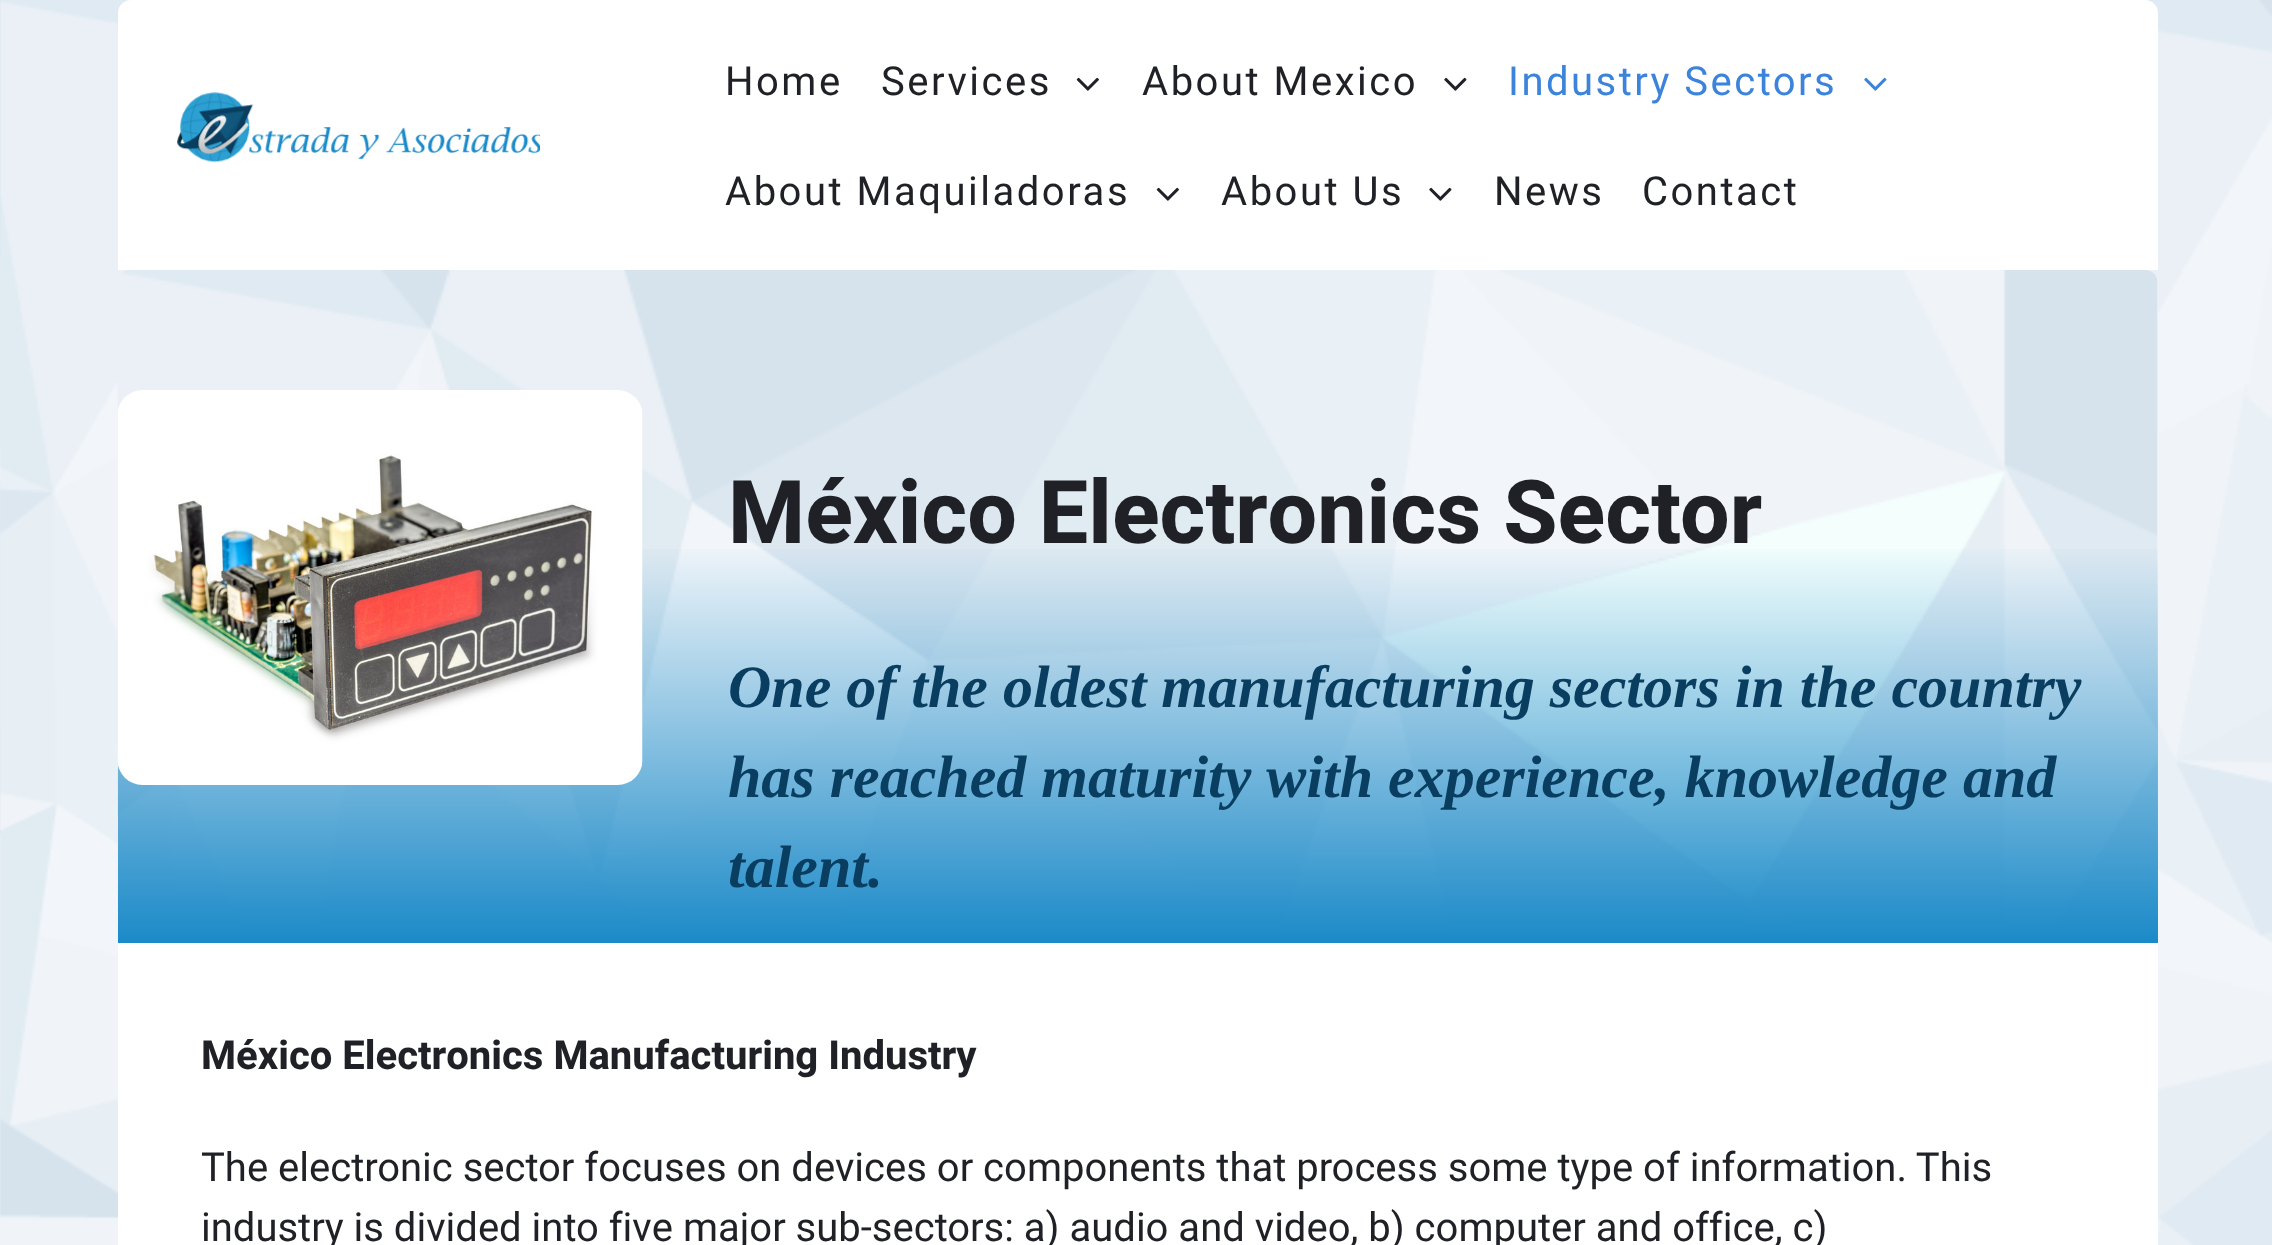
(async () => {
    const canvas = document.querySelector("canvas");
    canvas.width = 2272;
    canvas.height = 1245;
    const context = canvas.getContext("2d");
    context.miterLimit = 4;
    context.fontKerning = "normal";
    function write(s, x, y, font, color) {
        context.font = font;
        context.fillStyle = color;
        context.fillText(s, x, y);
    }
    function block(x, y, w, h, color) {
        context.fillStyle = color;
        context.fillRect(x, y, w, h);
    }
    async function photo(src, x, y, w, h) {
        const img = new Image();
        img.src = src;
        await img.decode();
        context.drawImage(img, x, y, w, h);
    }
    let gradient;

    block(0, 0, 2272, 1245, "rgb(255, 255, 255)");
    await photo("media/1.png", 0, 0, 2272, 1245);
    context.beginPath();
    context.roundRect(118, 0, 2040, 270, [13, 13, 0, 0]);
    context.fill();
    await photo("media/2.png", 177, 92, 363, 71);
    context.letterSpacing = "2.5px";
    write("Home", 725, 95, "40px Heebo", "rgb(31, 33, 38)");
    write("Services", 881, 95, "40px Heebo", "rgb(31, 33, 38)");
    await photo("media/3.png", 1076, 77, 23, 14);
    write("About Mexico", 1142, 95, "40px Heebo", "rgb(31, 33, 38)");
    await photo("media/4.png", 1444, 77, 23, 14);
    write("Industry Sectors", 1508, 95, "40px Heebo", "rgb(59, 131, 219)");
    await photo("media/5.png", 1864, 77, 23, 14);
    write("About Maquiladoras", 725, 205, "40px Heebo", "rgb(31, 33, 38)");
    await photo("media/3.png", 1156, 187, 23, 14);
    write("About Us", 1221, 205, "40px Heebo", "rgb(31, 33, 38)");
    await photo("media/4.png", 1429, 187, 23, 14);
    write("News", 1494, 205, "40px Heebo", "rgb(31, 33, 38)");
    write("Contact", 1642, 205, "40px Heebo", "rgb(31, 33, 38)");
    context.fillStyle = "rgba(255, 255, 255, 0.7)";
    context.beginPath();
    context.roundRect(118, 270, 2040, 673, [13, 13, 0, 0]);
    context.fill();
    await photo("media/6.png", 117, 270, 2041, 673);
    gradient = context.createLinearGradient(1138, 540, 1138, 943);
    gradient.addColorStop(0, "rgba(27, 138, 200, 0)");
    gradient.addColorStop(1, "rgb(27, 138, 200)");
    context.fillStyle = gradient;
    context.fillRect(118, 549, 2040, 394);
    await photo("media/7.png", 117, 390, 526, 395);
    context.letterSpacing = "0px";
    write("México Electronics Sector", 728, 543, "bold 88px Heebo", "rgb(31, 33, 38)");
    write("One of the oldest manufacturing sectors in the country", 728, 707, "italic bold 60px Liberation Serif", "rgb(9, 62, 96)");
    write("has reached maturity with experience, knowledge and", 728, 797, "italic bold 60px Liberation Serif", "rgb(9, 62, 96)");
    write("talent.", 728, 887, "italic bold 60px Liberation Serif", "rgb(9, 62, 96)");
    block(118, 943, 2040, 302, "rgb(255, 255, 255)");
    write("México Electronics Manufacturing Industry", 201, 1069, "bold 40px Heebo", "rgb(31, 33, 38)");
    write("The electronic sector focuses on devices or components that process some type of information. This", 201, 1181, "40px Heebo", "rgb(31, 33, 38)");
    write("industry is divided into five major sub-sectors: a) audio and video, b) computer and office, c)", 201, 1241, "40px Heebo", "rgb(31, 33, 38)");
})();
